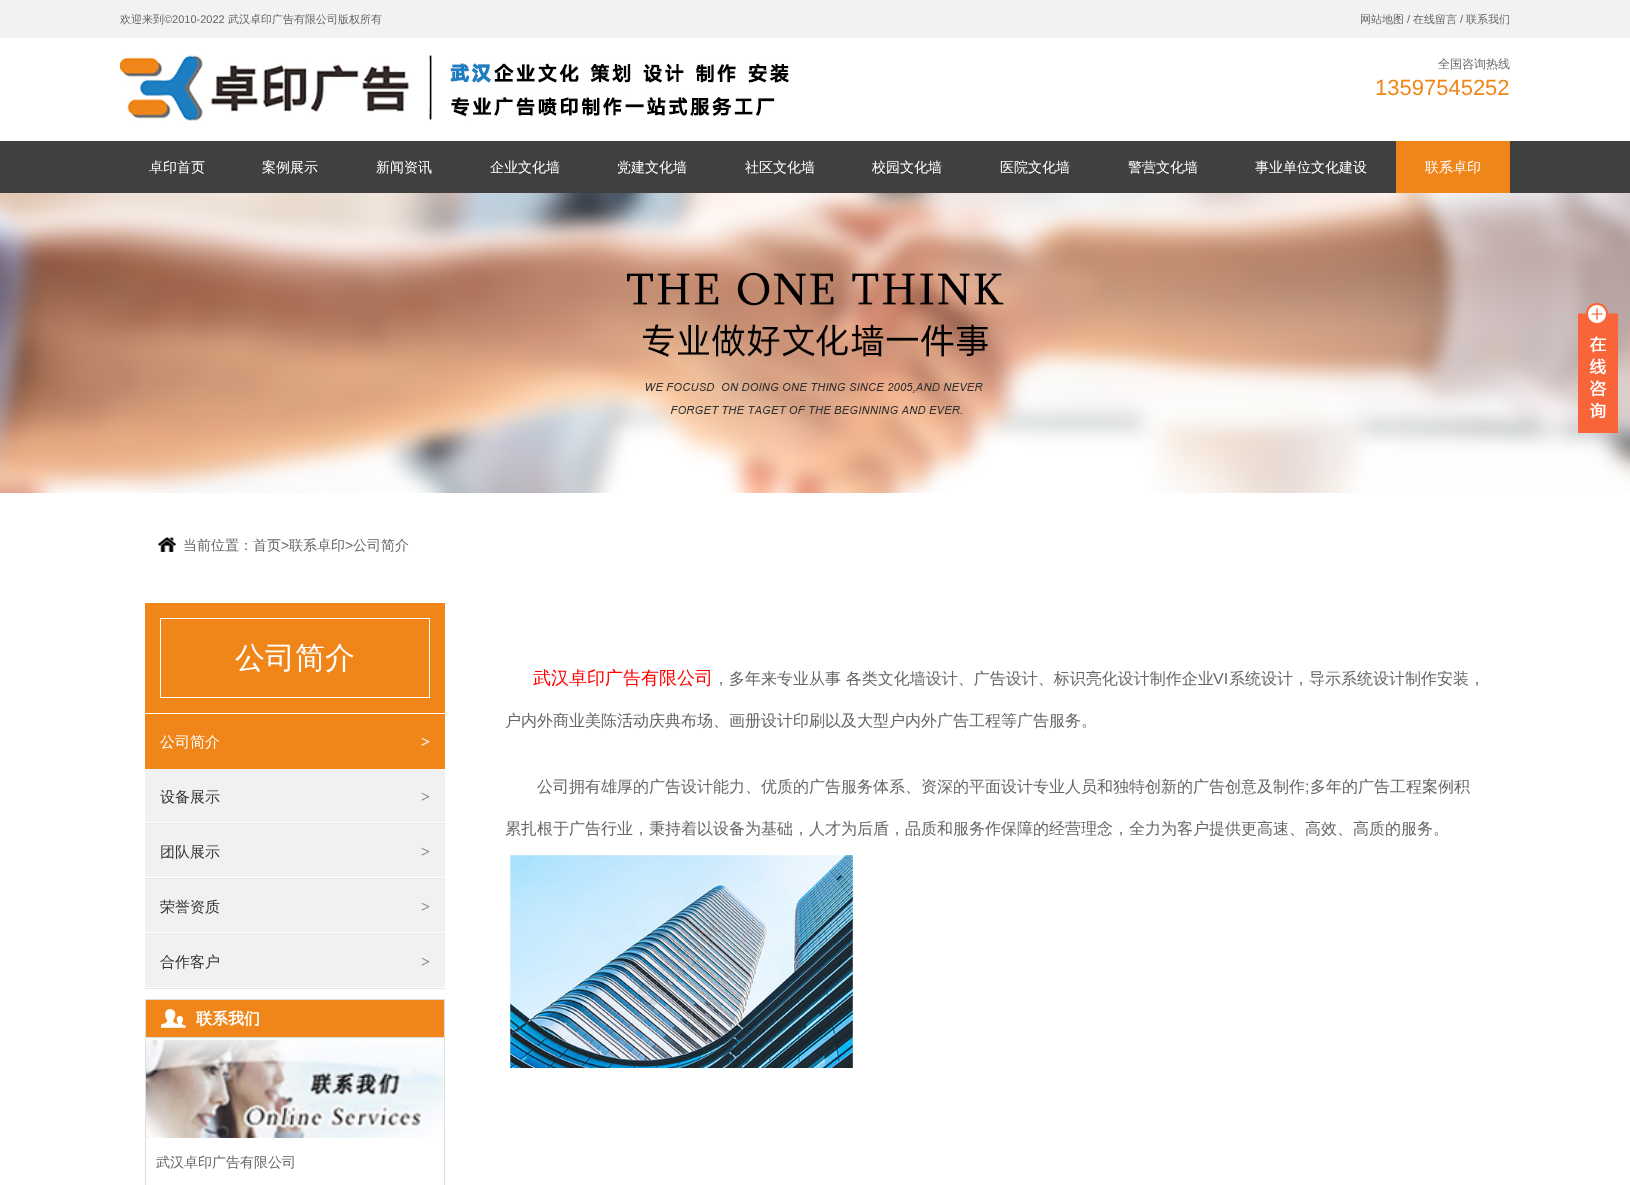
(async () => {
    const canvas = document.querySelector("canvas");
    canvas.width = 1630;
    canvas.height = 1185;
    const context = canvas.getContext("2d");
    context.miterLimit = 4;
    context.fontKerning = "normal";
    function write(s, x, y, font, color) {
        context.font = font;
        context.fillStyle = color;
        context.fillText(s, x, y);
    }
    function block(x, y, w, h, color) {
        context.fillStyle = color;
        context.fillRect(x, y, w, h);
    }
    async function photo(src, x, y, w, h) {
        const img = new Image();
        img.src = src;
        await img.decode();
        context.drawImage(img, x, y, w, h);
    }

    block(0, 0, 1630, 1185, "rgb(255, 255, 255)");
    block(0, 0, 1630, 38, "rgb(242, 242, 242)");
    write("欢迎来到", 120, 23, "500 11px WenQuanYi Zen Hei", "rgb(102, 102, 102)");
    write("©2010-2022", 164, 23, "11px Liberation Sans", "rgb(102, 102, 102)");
    write("武汉卓印广告有限公司版权所有", 228, 23, "500 11px WenQuanYi Zen Hei", "rgb(102, 102, 102)");
    write("网站地图", 1360, 23, "500 11px WenQuanYi Zen Hei", "rgb(102, 102, 102)");
    write("/", 1407, 23, "11px Liberation Sans", "rgb(102, 102, 102)");
    write("在线留言", 1413, 23, "500 11px WenQuanYi Zen Hei", "rgb(102, 102, 102)");
    write("/", 1460, 23, "11px Liberation Sans", "rgb(102, 102, 102)");
    write("联系我们", 1466, 23, "500 11px WenQuanYi Zen Hei", "rgb(102, 102, 102)");
    await photo("media/1.png", 120, 55, 669, 69);
    write("全国咨询热线", 1438, 68, "500 12px WenQuanYi Zen Hei", "rgb(102, 102, 102)");
    write("13597545252", 1375, 95, "22px Liberation Sans", "rgb(240, 134, 25)");
    block(0, 141, 1630, 52, "rgb(64, 64, 64)");
    write("卓印首页", 149, 172, "500 14px WenQuanYi Zen Hei", "rgb(255, 255, 255)");
    write("案例展示", 262, 172, "500 14px WenQuanYi Zen Hei", "rgb(255, 255, 255)");
    write("新闻资讯", 376, 172, "500 14px WenQuanYi Zen Hei", "rgb(255, 255, 255)");
    write("企业文化墙", 490, 172, "500 14px WenQuanYi Zen Hei", "rgb(255, 255, 255)");
    write("党建文化墙", 617, 172, "500 14px WenQuanYi Zen Hei", "rgb(255, 255, 255)");
    write("社区文化墙", 745, 172, "500 14px WenQuanYi Zen Hei", "rgb(255, 255, 255)");
    write("校园文化墙", 872, 172, "500 14px WenQuanYi Zen Hei", "rgb(255, 255, 255)");
    write("医院文化墙", 1000, 172, "500 14px WenQuanYi Zen Hei", "rgb(255, 255, 255)");
    write("警营文化墙", 1128, 172, "500 14px WenQuanYi Zen Hei", "rgb(255, 255, 255)");
    write("事业单位文化建设", 1255, 172, "500 14px WenQuanYi Zen Hei", "rgb(255, 255, 255)");
    block(1396, 141, 114, 52, "rgb(240, 134, 25)");
    write("联系卓印", 1425, 172, "500 14px WenQuanYi Zen Hei", "rgb(255, 255, 255)");
    await photo("media/2.png", 0, 193, 1630, 300);
    await photo("media/3.png", 1578, 302, 40, 131);
    await photo("media/4.png", 158, 537, 18, 15);
    write("当前位置：首页", 183, 550, "500 14px WenQuanYi Zen Hei", "rgb(102, 102, 102)");
    write(">", 281, 550, "14px Liberation Sans", "rgb(102, 102, 102)");
    write("联系卓印", 289, 550, "500 14px WenQuanYi Zen Hei", "rgb(102, 102, 102)");
    write(">", 345, 550, "14px Liberation Sans", "rgb(102, 102, 102)");
    write("公司简介", 353, 550, "500 14px WenQuanYi Zen Hei", "rgb(102, 102, 102)");
    block(145, 603, 300, 110, "rgb(240, 133, 25)");
    context.strokeStyle = "rgb(255, 255, 255)";
    context.strokeRect(160.5, 618.5, 269, 79);
    write("公司简介", 235, 668, "500 30px WenQuanYi Zen Hei", "rgb(255, 255, 255)");
    block(145, 769, 300, 218, "rgb(241, 241, 241)");
    block(145, 714, 300, 55, "rgb(240, 133, 25)");
    write("公司简介", 160, 747, "500 15px WenQuanYi Zen Hei", "rgb(255, 255, 255)");
    write(">", 421, 747, "bold 16px Liberation Serif", "rgb(255, 255, 255)");
    await photo("media/5.png", 145, 822, 300, 2);
    write("设备展示", 160, 802, "500 15px WenQuanYi Zen Hei", "rgb(51, 51, 51)");
    write(">", 421, 802, "bold 16px Liberation Serif", "rgb(136, 136, 136)");
    await photo("media/5.png", 145, 877, 300, 2);
    write("团队展示", 160, 857, "500 15px WenQuanYi Zen Hei", "rgb(51, 51, 51)");
    write(">", 421, 857, "bold 16px Liberation Serif", "rgb(136, 136, 136)");
    await photo("media/5.png", 145, 932, 300, 2);
    write("荣誉资质", 160, 912, "500 15px WenQuanYi Zen Hei", "rgb(51, 51, 51)");
    write(">", 421, 912, "bold 16px Liberation Serif", "rgb(136, 136, 136)");
    await photo("media/5.png", 145, 987, 300, 2);
    write("合作客户", 160, 967, "500 15px WenQuanYi Zen Hei", "rgb(51, 51, 51)");
    write(">", 421, 967, "bold 16px Liberation Serif", "rgb(136, 136, 136)");
    context.strokeStyle = "rgb(222, 222, 222)";
    context.strokeRect(145.5, 999.5, 299, 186);
    block(146, 1000, 298, 37, "rgb(240, 133, 25)");
    await photo("media/6.png", 161, 1009, 25, 19);
    block(146, 1037, 298, 1, "rgb(222, 222, 222)");
    write("联系我们", 196, 1024, "bold 16px WenQuanYi Zen Hei", "rgb(255, 255, 255)");
    await photo("media/7.png", 146, 1040, 298, 98);
    write("武汉卓印广告有限公司", 156, 1167, "500 14px WenQuanYi Zen Hei", "rgb(102, 102, 102)");
    write("武汉卓印广告有限公司", 533, 684, "500 18px WenQuanYi Zen Hei", "rgb(255, 0, 0)");
    write("多年来专业从事 各类文化墙设计、广告设计、标识亮化设计制作企业", 729, 684, "500 16px WenQuanYi Zen Hei", "rgb(102, 102, 102)");
    write("VI", 1213, 684, "16px Liberation Sans", "rgb(102, 102, 102)");
    write("系统设计，导示系统设计制作安装，", 1229, 684, "500 16px WenQuanYi Zen Hei", "rgb(102, 102, 102)");
    write("，", 713, 684, "500 16px WenQuanYi Zen Hei", "rgb(102, 102, 102)");
    write("户内外商业美陈活动庆典布场、画册设计印刷以及大型户内外广告工程等广告服务。", 505, 726, "500 16px WenQuanYi Zen Hei", "rgb(102, 102, 102)");
    write("公司拥有雄厚的广告设计能力、优质的广告服务体系、资深的平面设计专业人员和独特创新的广告创意及制作", 537, 792, "500 16px WenQuanYi Zen Hei", "rgb(102, 102, 102)");
    write(";", 1305, 792, "16px Liberation Sans", "rgb(102, 102, 102)");
    write("多年的广告工程案例积", 1310, 792, "500 16px WenQuanYi Zen Hei", "rgb(102, 102, 102)");
    write("累扎根于广告行业，秉持着以设备为基础，人才为后盾，品质和服务作保障的经营理念，全力为客户提供更高速、高效、高质的服务。", 505, 834, "500 16px WenQuanYi Zen Hei", "rgb(102, 102, 102)");
    await photo("media/8.png", 510, 855, 345, 213);
})();
